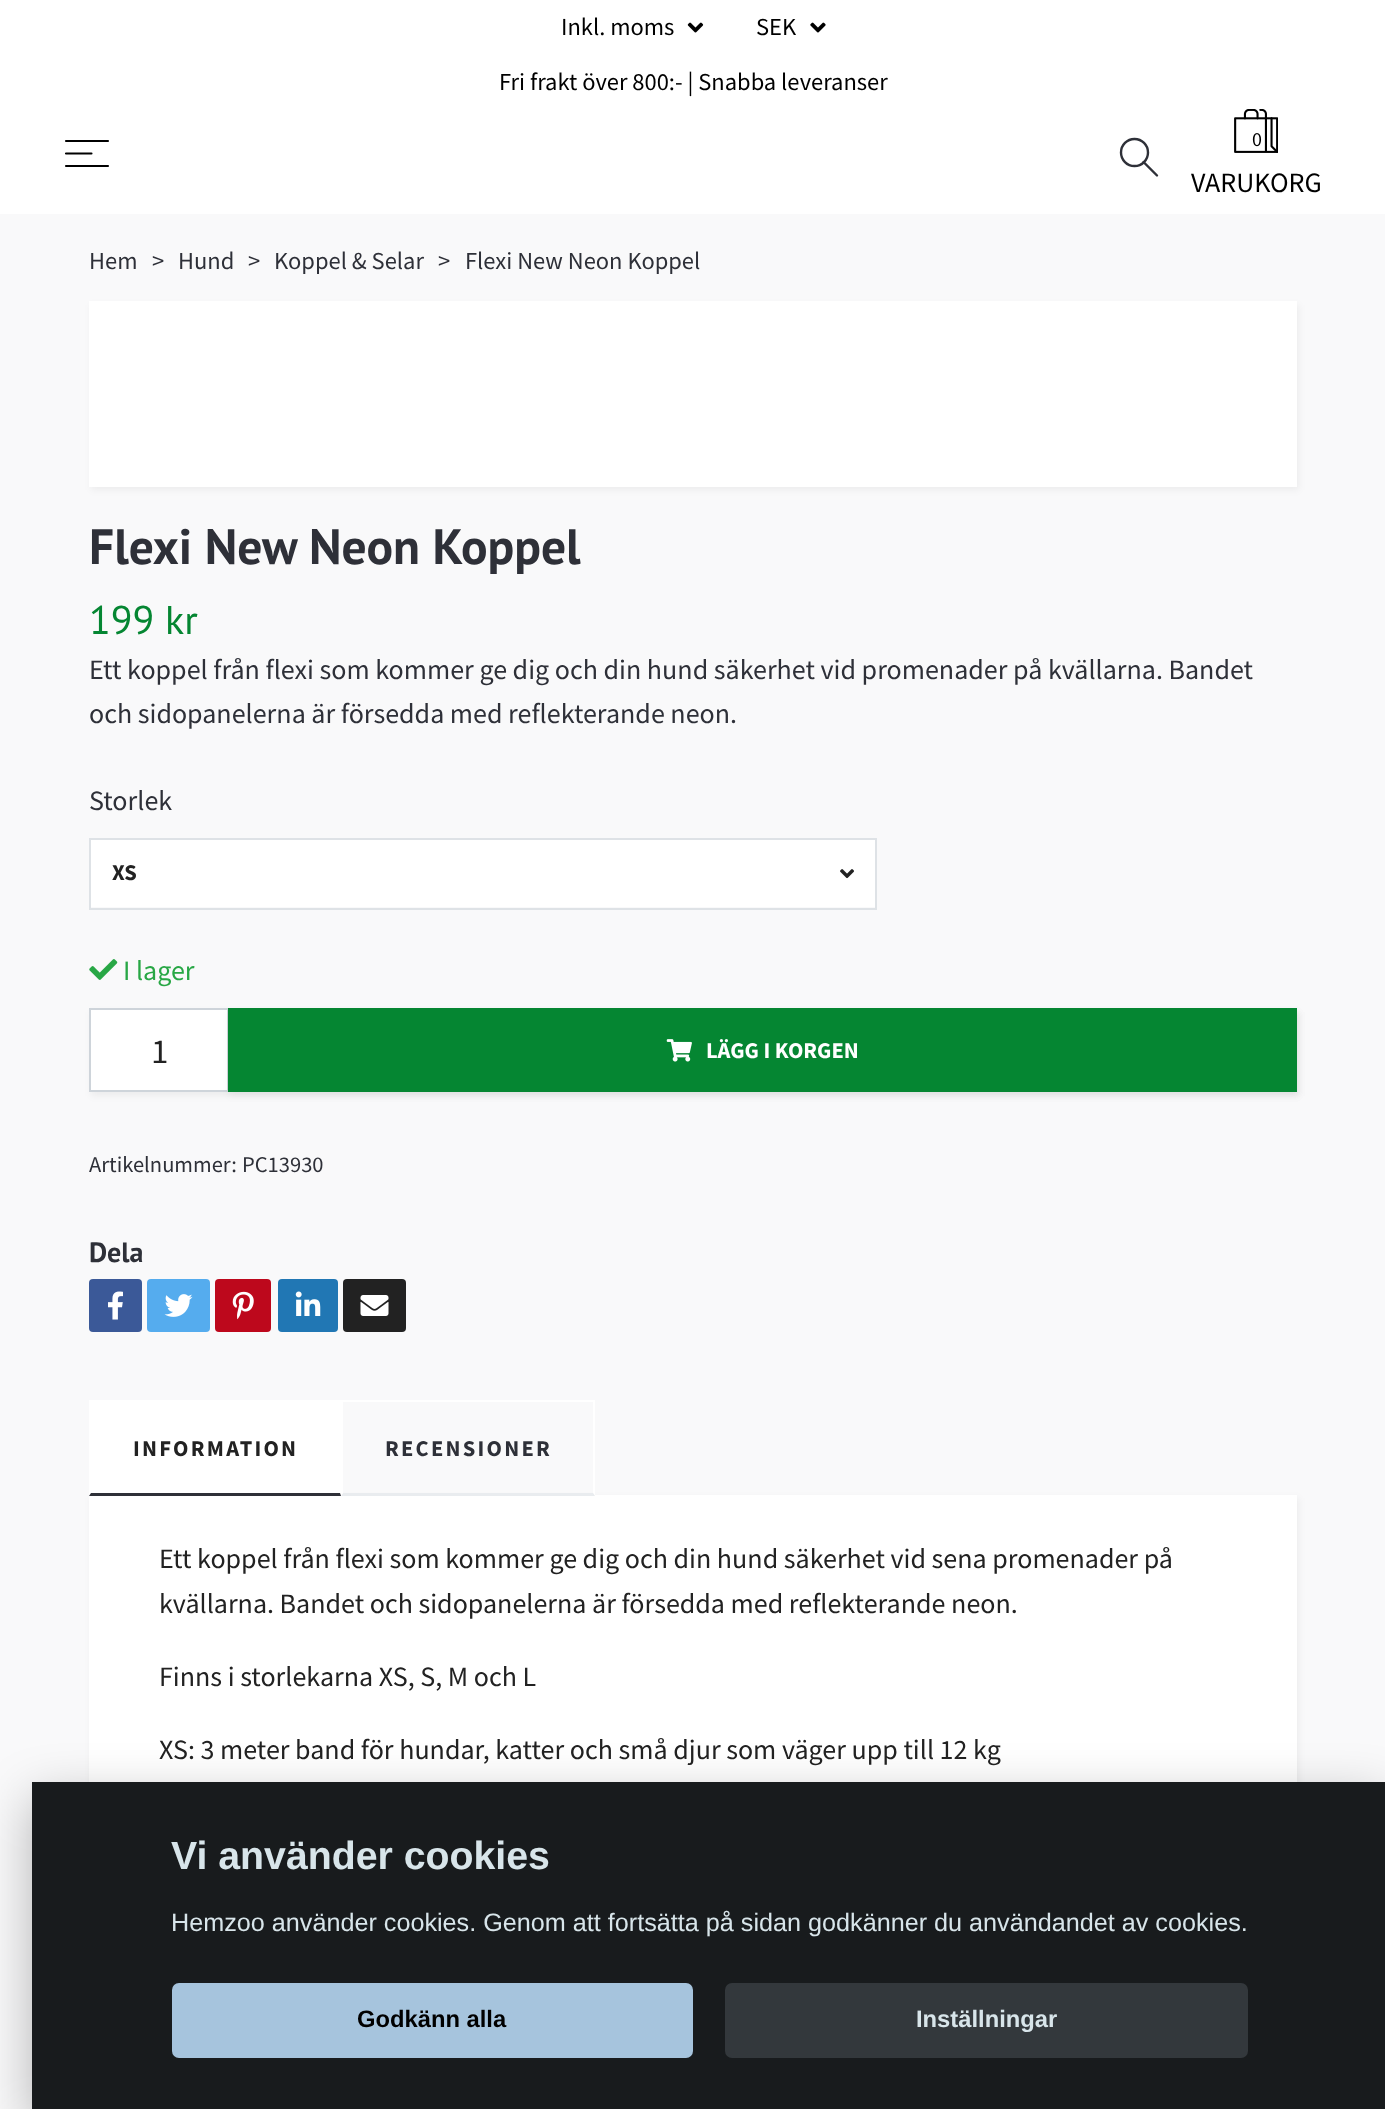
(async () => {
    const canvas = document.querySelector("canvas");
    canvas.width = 1385;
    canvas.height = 2109;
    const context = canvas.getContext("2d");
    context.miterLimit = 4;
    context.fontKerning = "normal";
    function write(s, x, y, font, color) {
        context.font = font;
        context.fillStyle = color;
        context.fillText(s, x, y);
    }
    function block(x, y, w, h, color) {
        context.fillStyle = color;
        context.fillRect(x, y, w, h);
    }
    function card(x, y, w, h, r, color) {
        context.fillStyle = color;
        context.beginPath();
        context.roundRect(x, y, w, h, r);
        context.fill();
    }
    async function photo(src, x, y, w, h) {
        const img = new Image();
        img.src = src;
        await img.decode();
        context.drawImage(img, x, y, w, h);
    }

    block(0, 0, 1385, 2109, "rgb(249, 249, 250)");
    block(0, 0, 1385, 214, "rgb(255, 255, 255)");
    write("Inkl. moms", 561, 35, "24.5px Source Sans Pro", "rgb(0, 0, 0)");
    await photo("media/1.png", 687, 22, 17, 11);
    write("SEK", 756, 35, "24.5px Source Sans Pro", "rgb(0, 0, 0)");
    await photo("media/2.png", 810, 22, 16, 11);
    write("Fri frakt över 800:- | Snabba leveranser", 499, 90, "24.5px Source Sans Pro", "rgb(0, 0, 0)");
    context.beginPath();
    context.moveTo(66, 141);
    context.lineTo(108, 141);
    context.moveTo(66, 153.5);
    context.lineTo(91.5, 153.5);
    context.moveTo(66, 166);
    context.lineTo(108, 166);
    context.strokeStyle = "rgb(0, 0, 0)";
    context.lineWidth = 2.1;
    context.lineCap = "round";
    context.lineJoin = "round";
    context.stroke();
    context.beginPath();
    context.moveTo(1143.5, 162);
    context.lineTo(1157, 175.5);
    context.strokeStyle = "rgb(46, 48, 56)";
    context.lineWidth = 2.4;
    context.stroke();
    context.beginPath();
    context.arc(1134.5, 152.5, 13.5, 0, Math.PI * 2);
    context.stroke();
    await photo("media/3.png", 1234, 109, 44, 44);
    write("0", 1252, 146, "20px Source Sans Pro", "rgb(0, 0, 0)");
    write("VARUKORG", 1191, 192, "28px Source Sans Pro", "rgb(0, 0, 0)");
    write("Hem", 89, 269, "24.5px Source Sans Pro", "rgb(46, 48, 56)");
    write(">", 152, 269, "24.5px Source Sans Pro", "rgb(46, 48, 56)");
    write("Hund", 178, 269, "24.5px Source Sans Pro", "rgb(46, 48, 56)");
    write(">", 248, 269, "24.5px Source Sans Pro", "rgb(46, 48, 56)");
    write("Koppel & Selar", 274, 269, "24.5px Source Sans Pro", "rgb(46, 48, 56)");
    write(">", 438, 269, "24.5px Source Sans Pro", "rgb(46, 48, 56)");
    write("Flexi New Neon Koppel", 465, 269, "24.5px Source Sans Pro", "rgb(46, 48, 56)");
    context.fillStyle = "rgba(0, 0, 0, 0.05)";
    context.filter = "blur(3.5px)";
    context.beginPath();
    context.rect(91, 305, 1208, 185);
    context.fill();
    context.filter = "none";
    block(89, 301, 1208, 186, "rgb(255, 255, 255)");
    write("Flexi New Neon Koppel", 89, 564, "bold 49.5px PT Sans", "rgb(46, 48, 56)");
    write("199 kr", 89, 634, "40px PT Sans", "rgb(5, 134, 50)");
    write("Ett koppel från flexi som kommer ge dig och din hund säkerhet vid promenader på kvällarna. Bandet", 89, 679, "28px Source Sans Pro", "rgb(46, 48, 56)");
    write("och sidopanelerna är försedda med reflekterande neon.", 89, 723, "28px Source Sans Pro", "rgb(46, 48, 56)");
    write("Storlek", 89, 810, "28px Source Sans Pro", "rgb(46, 48, 56)");
    block(91, 840, 784, 67, "rgb(255, 255, 255)");
    context.strokeStyle = "rgb(222, 226, 230)";
    context.lineWidth = 2;
    context.lineJoin = "miter";
    context.strokeRect(90, 839, 786, 70);
    write("XS", 112, 880, "bold 22.5px Source Sans Pro", "rgb(34, 34, 34)");
    await photo("media/4.png", 840, 869, 14, 10);
    await photo("media/5.png", 89, 959, 29, 21);
    write("I lager", 123, 980, "28px Source Sans Pro", "rgb(40, 167, 69)");
    context.fillStyle = "rgba(0, 0, 0, 0.05)";
    context.filter = "blur(3.5px)";
    context.beginPath();
    context.rect(91, 1012, 1208, 84);
    context.fill();
    context.filter = "none";
    context.fillStyle = "rgb(255, 255, 255)";
    context.beginPath();
    context.rect(90, 1009, 138, 82);
    context.fill();
    context.strokeStyle = "rgb(206, 212, 218)";
    context.stroke();
    write("1", 151, 1063, "35px Source Sans Pro", "rgb(34, 34, 34)");
    context.fillStyle = "rgba(0, 0, 0, 0.05)";
    context.filter = "blur(3.5px)";
    context.beginPath();
    context.rect(229, 1012, 1070, 84);
    context.fill();
    context.filter = "none";
    block(228, 1008, 1069, 84, "rgb(5, 134, 50)");
    await photo("media/6.png", 666, 1039, 26, 23);
    write("LÄGG I KORGEN", 706, 1058, "bold 22.5px Source Sans Pro", "rgb(255, 255, 255)");
    write("Artikelnummer:", 89, 1172, "22.5px Source Sans Pro", "rgb(46, 48, 56)");
    write("PC13930", 242, 1172, "22.5px Source Sans Pro", "rgb(46, 48, 56)");
    write("Dela", 89, 1262, "bold 28px PT Sans", "rgb(46, 48, 56)");
    card(89, 1279, 53, 53, 4, "rgb(59, 89, 152)");
    await photo("media/7.png", 108, 1291, 15, 29);
    card(147, 1279, 63, 53, 4, "rgb(85, 172, 238)");
    await photo("media/8.png", 164, 1294, 29, 23);
    card(215, 1279, 56, 53, 4, "rgb(189, 8, 28)");
    await photo("media/9.png", 232, 1291, 22, 29);
    card(278, 1279, 60, 53, 4, "rgb(33, 119, 180)");
    await photo("media/10.png", 295, 1291, 26, 25);
    card(343, 1279, 63, 53, 4, "rgb(34, 34, 34)");
    await photo("media/11.png", 360, 1295, 29, 21);
    context.fillStyle = "rgba(0, 0, 0, 0.05)";
    context.filter = "blur(3.5px)";
    context.beginPath();
    context.rect(91, 1498, 1208, 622);
    context.fill();
    context.filter = "none";
    block(89, 1400, 252, 95, "rgb(255, 255, 255)");
    block(89, 1495, 1208, 287, "rgb(255, 255, 255)");
    context.fillStyle = "rgb(46, 48, 56)";
    context.beginPath();
    context.moveTo(341, 1496);
    context.lineTo(89, 1496);
    context.lineTo(91, 1493);
    context.lineTo(340, 1493);
    context.closePath();
    context.fill();
    context.letterSpacing = "2.25px";
    write("INFORMATION", 133, 1456, "bold 22.5px Source Sans Pro", "rgb(34, 34, 34)");
    block(341, 1400, 254, 2, "rgb(255, 255, 255)");
    context.beginPath();
    context.moveTo(595, 1400);
    context.lineTo(595, 1496);
    context.lineTo(593, 1493);
    context.lineTo(593, 1402);
    context.closePath();
    context.fill();
    context.fillStyle = "rgb(233, 236, 239)";
    context.beginPath();
    context.moveTo(595, 1496);
    context.lineTo(341, 1496);
    context.lineTo(343, 1493);
    context.lineTo(593, 1493);
    context.closePath();
    context.fill();
    context.fillStyle = "rgb(255, 255, 255)";
    context.beginPath();
    context.moveTo(341, 1496);
    context.lineTo(341, 1400);
    context.lineTo(343, 1402);
    context.lineTo(343, 1493);
    context.closePath();
    context.fill();
    write("RECENSIONER", 385, 1456, "bold 22.5px Source Sans Pro", "rgb(46, 48, 56)");
    context.letterSpacing = "0px";
    write("Ett koppel från flexi som kommer ge dig och din hund säkerhet vid sena promenader på", 159, 1568, "28px Source Sans Pro", "rgb(34, 34, 34)");
    write("kvällarna. Bandet och sidopanelerna är försedda med reflekterande neon.", 159, 1613, "28px Source Sans Pro", "rgb(34, 34, 34)");
    write("Finns i storlekarna XS, S, M och L", 159, 1686, "28px Source Sans Pro", "rgb(34, 34, 34)");
    write("XS: 3 meter band för hundar, katter och små djur som väger upp till 12 kg", 159, 1759, "28px Source Sans Pro", "rgb(34, 34, 34)");
    context.fillStyle = "rgba(2, 2, 3, 0.28)";
    context.filter = "blur(26px)";
    context.beginPath();
    context.rect(32, 1799, 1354, 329);
    context.fill();
    context.filter = "none";
    block(32, 1782, 1353, 327, "rgb(24, 27, 29)");
    write("Vi använder cookies", 171, 1869, "bold 39.25px Liberation Sans", "rgb(216, 229, 234)");
    write("Hemzoo använder cookies. Genom att fortsätta på sidan godkänner du användandet av cookies.", 171, 1931, "25.2px Liberation Sans", "rgb(216, 229, 234)");
    card(172, 1983, 521, 75, 7, "rgb(166, 196, 221)");
    write("Godkänn alla", 357, 2027, "bold 23.75px Liberation Sans", "rgb(0, 0, 0)");
    card(725, 1983, 523, 75, 7, "rgb(51, 56, 60)");
    write("Inställningar", 916, 2027, "bold 23.75px Liberation Sans", "rgb(216, 229, 234)");
})();
